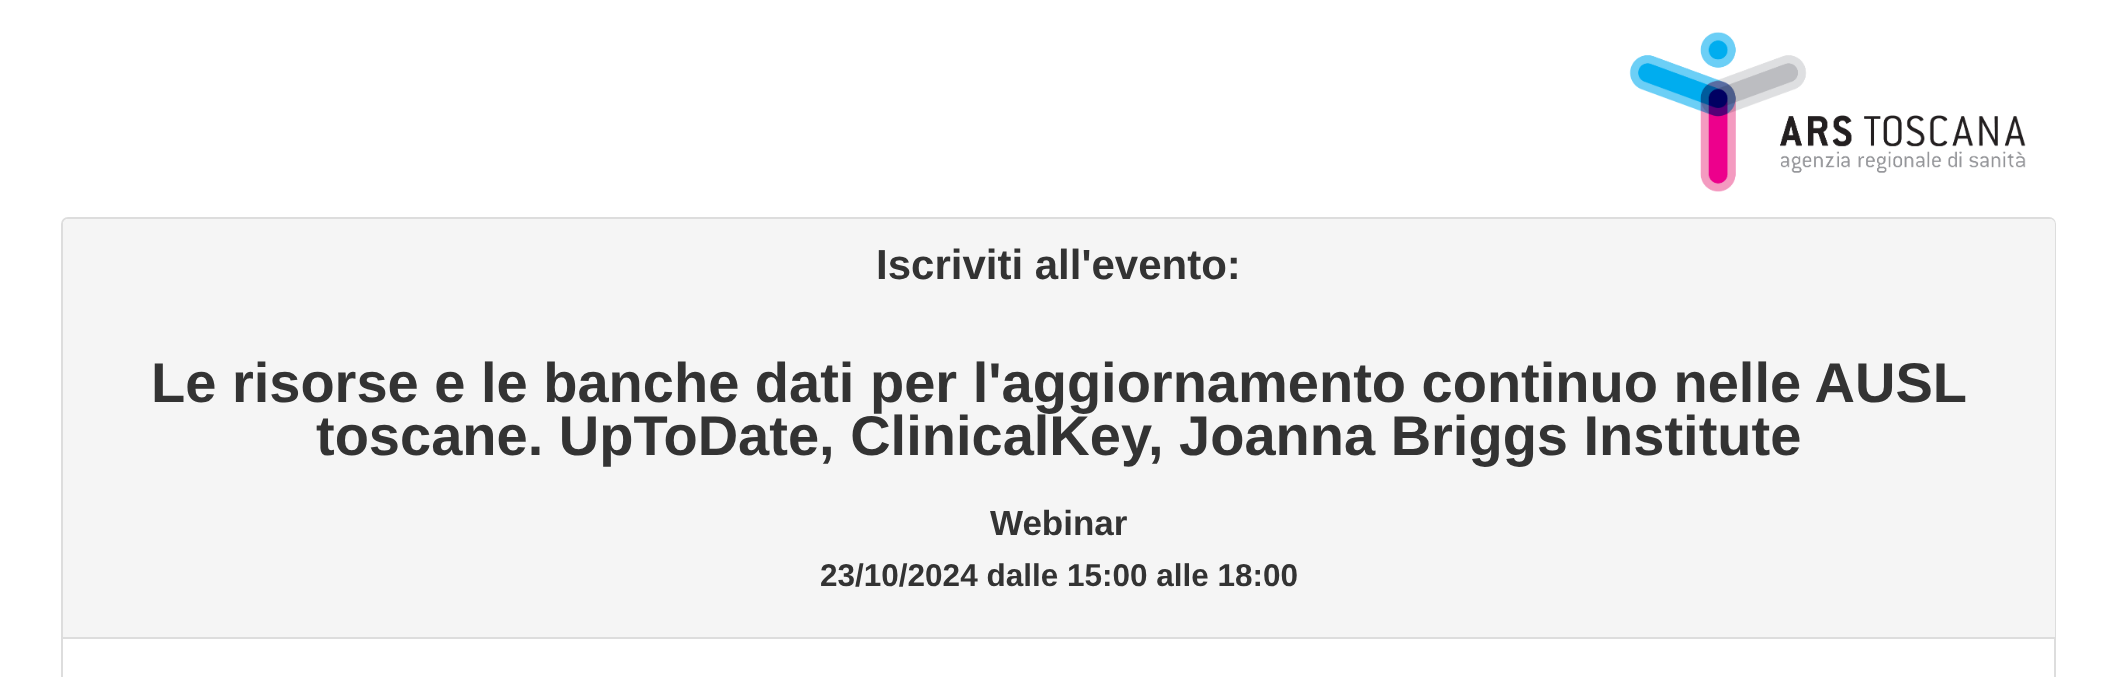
(async () => {
    const canvas = document.querySelector("canvas");
    canvas.width = 2117;
    canvas.height = 677;
    const context = canvas.getContext("2d");
    context.miterLimit = 4;
    context.fontKerning = "normal";
    function write(s, x, y, font, color) {
        context.font = font;
        context.fillStyle = color;
        context.fillText(s, x, y);
    }
    function block(x, y, w, h, color) {
        context.fillStyle = color;
        context.fillRect(x, y, w, h);
    }
    async function photo(src, x, y, w, h) {
        const img = new Image();
        img.src = src;
        await img.decode();
        context.drawImage(img, x, y, w, h);
    }

    block(0, 0, 2117, 677, "rgb(255, 255, 255)");
    await photo("media/1.png", 1629, 32, 397, 160);
    context.beginPath();
    context.roundRect(62, 218, 1993, 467, 6);
    context.strokeStyle = "rgb(221, 221, 221)";
    context.lineWidth = 2;
    context.stroke();
    context.fillStyle = "rgb(245, 245, 245)";
    context.beginPath();
    context.roundRect(63, 219, 1992, 420, [5, 5, 0, 0]);
    context.fill();
    block(63, 637, 1992, 2, "rgb(221, 221, 221)");
    write("Iscriviti all'evento:", 876, 279, "bold 42px Liberation Sans", "rgb(51, 51, 51)");
    write("Le risorse e le banche dati per l'aggiornamento continuo nelle AUSL", 151, 402, "bold 56px Liberation Sans", "rgb(51, 51, 51)");
    write("toscane. UpToDate, ClinicalKey, Joanna Briggs Institute", 316, 455, "bold 56px Liberation Sans", "rgb(51, 51, 51)");
    write("Webinar", 990, 535, "bold 35px Liberation Sans", "rgb(51, 51, 51)");
    write("23/10/2024 dalle 15:00 alle 18:00", 820, 586, "bold 31.5px Liberation Sans", "rgb(51, 51, 51)");
})();
